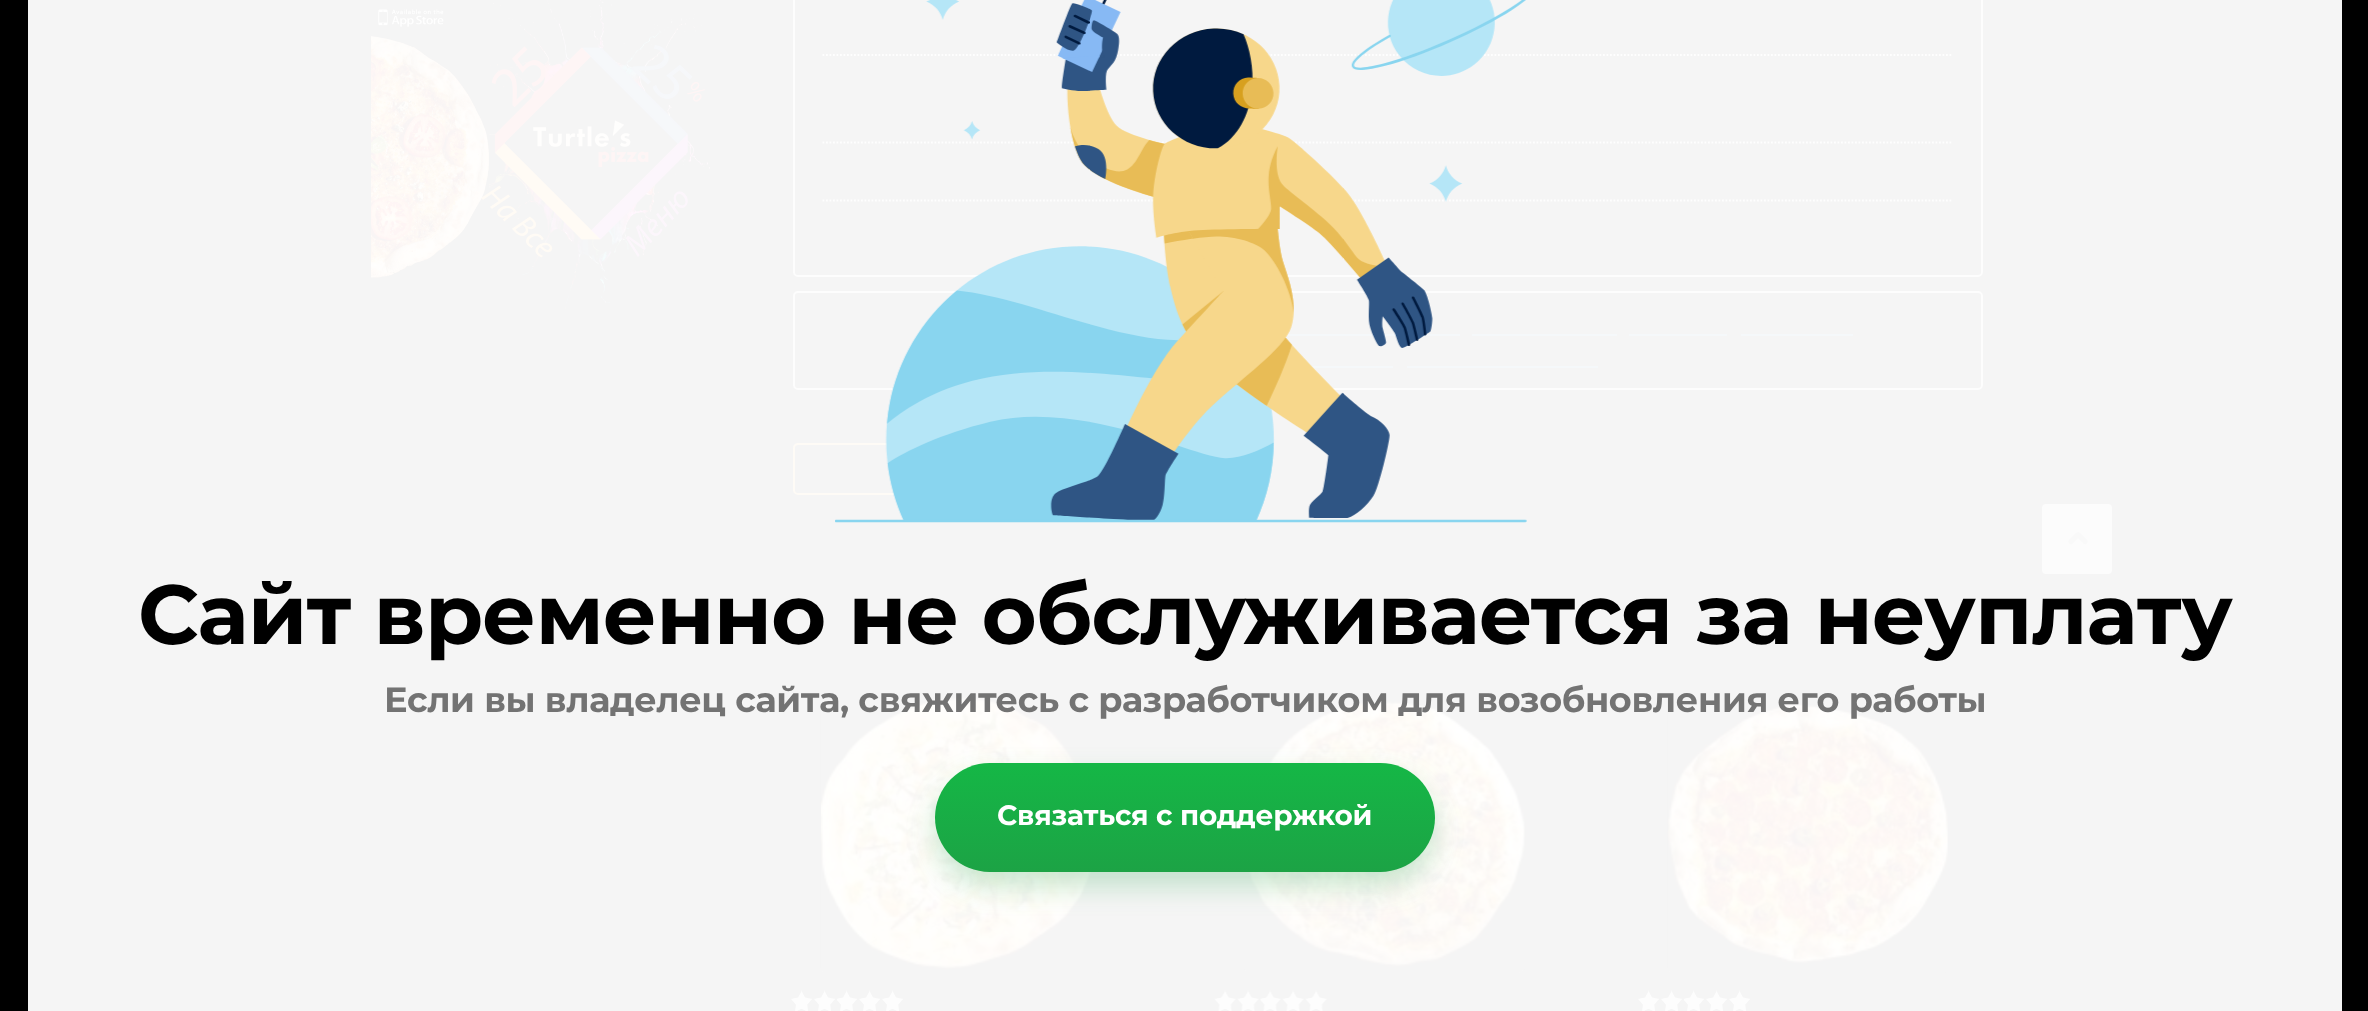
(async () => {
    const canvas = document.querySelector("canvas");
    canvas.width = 2368;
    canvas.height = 1011;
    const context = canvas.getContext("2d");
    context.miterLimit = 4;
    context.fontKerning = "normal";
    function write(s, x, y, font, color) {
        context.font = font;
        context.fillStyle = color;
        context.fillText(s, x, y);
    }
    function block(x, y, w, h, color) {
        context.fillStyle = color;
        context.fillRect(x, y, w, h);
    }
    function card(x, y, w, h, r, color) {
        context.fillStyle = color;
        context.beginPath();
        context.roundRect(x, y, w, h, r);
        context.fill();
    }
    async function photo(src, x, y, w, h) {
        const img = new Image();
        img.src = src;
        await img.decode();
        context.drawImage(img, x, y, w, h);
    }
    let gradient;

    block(0, 0, 2368, 1011, "rgb(0, 0, 0)");
    block(28, 0, 2314, 1011, "rgb(245, 245, 245)");
    await photo("media/1.png", 371, 0, 340, 310);
    context.beginPath();
    context.roundRect(794, -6, 1188, 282, 4);
    context.strokeStyle = "rgb(253, 253, 253)";
    context.lineWidth = 2;
    context.stroke();
    context.beginPath();
    context.moveTo(822.5, 55);
    context.lineTo(1953, 55);
    context.strokeStyle = "rgb(254, 254, 254)";
    context.lineWidth = 1.8;
    context.setLineDash([1.75, 1.75]);
    context.stroke();
    context.beginPath();
    context.moveTo(822.5, 142.5);
    context.lineTo(1953, 142.5);
    context.stroke();
    context.beginPath();
    context.moveTo(822.5, 200.5);
    context.lineTo(1953, 200.5);
    context.stroke();
    context.beginPath();
    context.roundRect(794, 292, 1188, 97, 4);
    context.strokeStyle = "rgb(253, 253, 253)";
    context.lineWidth = 2;
    context.setLineDash([]);
    context.stroke();
    block(1286, 334, 174, 2, "rgb(245, 248, 250)");
    block(1472, 334, 145, 2, "rgb(245, 248, 250)");
    block(1629, 334, 98, 2, "rgb(245, 248, 250)");
    block(1741, 334, 112, 2, "rgb(245, 248, 250)");
    block(1307, 366, 86, 2, "rgb(245, 248, 250)");
    block(1407, 366, 191, 2, "rgb(245, 248, 250)");
    context.beginPath();
    context.roundRect(794, 444, 122, 50, 4);
    context.strokeStyle = "rgb(254, 251, 246)";
    context.stroke();
    await photo("media/2.png", 820, 693, 281, 280);
    await photo("media/3.png", 791, 990, 113, 21);
    await photo("media/4.png", 1243, 693, 282, 280);
    await photo("media/5.png", 1214, 990, 113, 21);
    await photo("media/6.png", 1667, 693, 281, 280);
    await photo("media/3.png", 1638, 990, 113, 21);
    card(2042, 504, 70, 70, 4, "rgb(252, 252, 252)");
    await photo("media/7.png", 2068, 532, 20, 13);
    await photo("media/8.png", 835, 0, 692, 523);
    context.letterSpacing = "-0.85px";
    write("Сайт временно не обслуживается за неуплату", 138, 644, "bold 84px Montserrat", "rgb(0, 0, 0)");
    context.letterSpacing = "-0.35px";
    write("Если вы владелец сайта, свяжитесь с разработчиком для возобновления его работы", 384, 712, "bold 35px Montserrat", "rgb(115, 115, 115)");
    context.fillStyle = "rgba(28, 163, 69, 0.24)";
    context.filter = "blur(14px)";
    context.beginPath();
    context.roundRect(935, 777, 500, 109, 54.5);
    context.fill();
    context.filter = "none";
    gradient = context.createLinearGradient(1185, 763, 1185, 872);
    gradient.addColorStop(0, "rgb(21, 183, 70)");
    gradient.addColorStop(1, "rgb(28, 163, 69)");
    context.fillStyle = gradient;
    context.beginPath();
    context.roundRect(935, 763, 500, 109, 54.5);
    context.fill();
    context.letterSpacing = "-0.25px";
    write("Связаться с поддержкой", 997, 825, "bold 28px Montserrat", "rgb(255, 255, 255)");
})();
